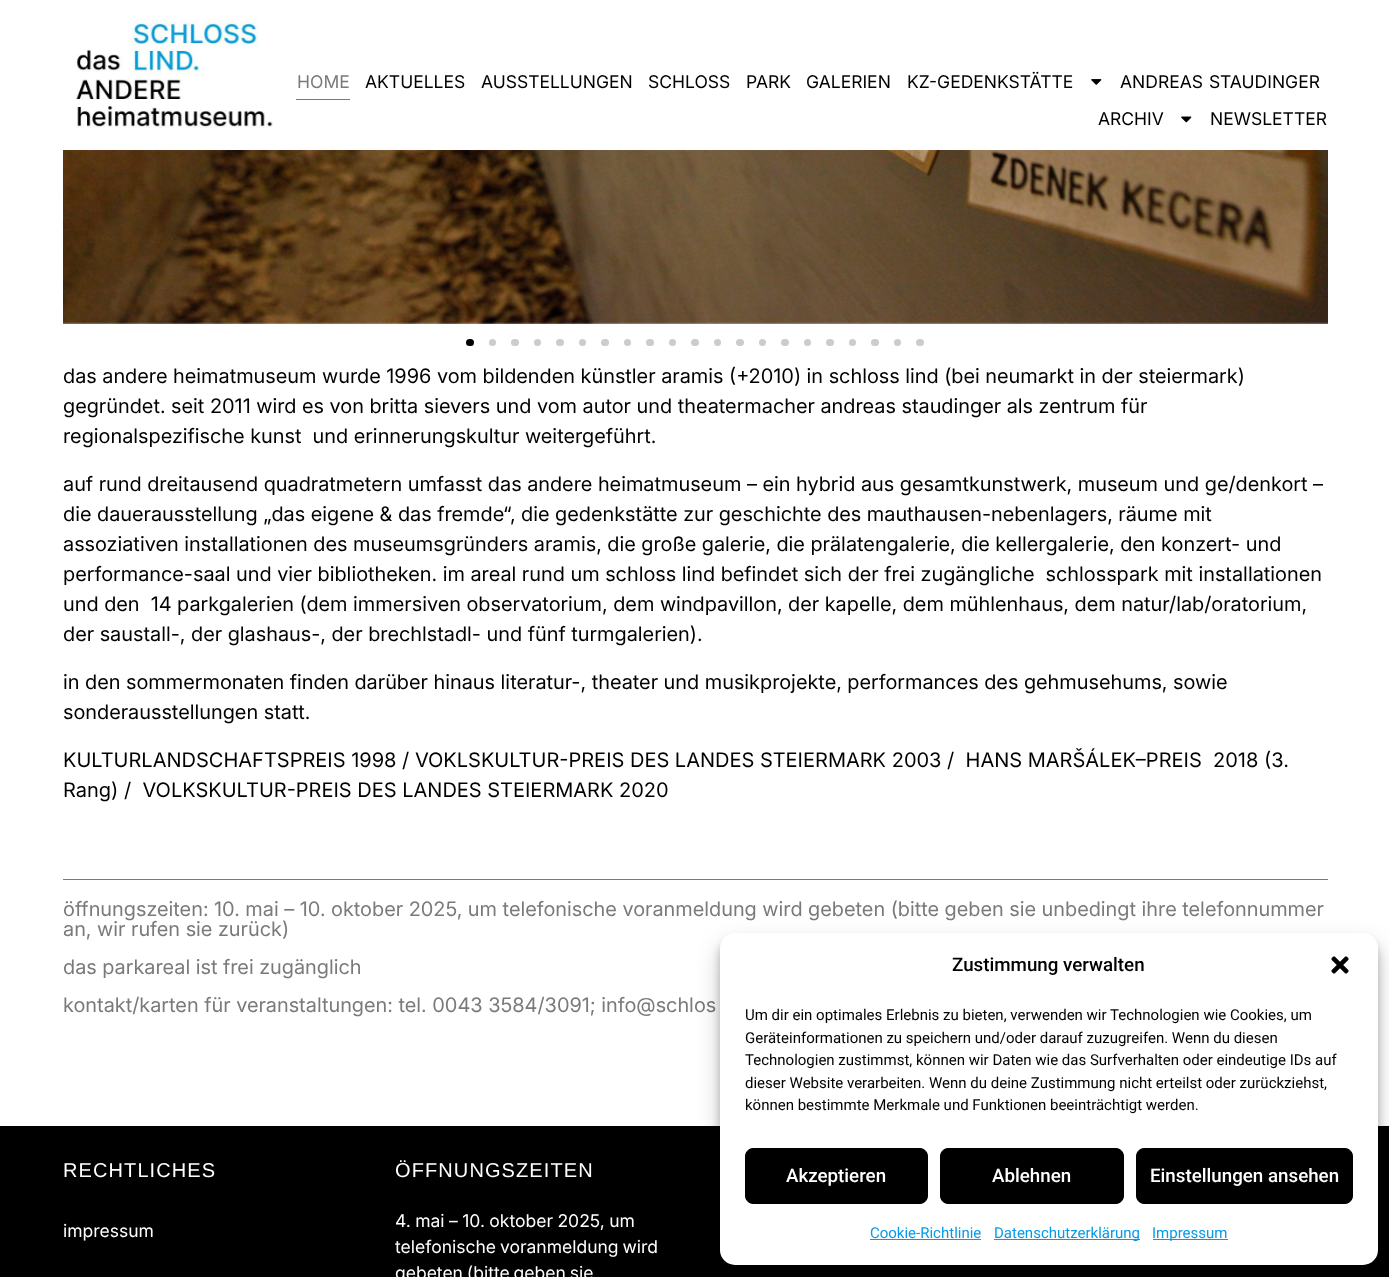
(async () => {
    const canvas = document.querySelector("canvas");
    canvas.width = 1389;
    canvas.height = 1277;
    const context = canvas.getContext("2d");
    context.miterLimit = 4;
    context.fontKerning = "normal";
    function write(s, x, y, font, color) {
        context.font = font;
        context.fillStyle = color;
        context.fillText(s, x, y);
    }
    function block(x, y, w, h, color) {
        context.fillStyle = color;
        context.fillRect(x, y, w, h);
    }
    function card(x, y, w, h, r, color) {
        context.fillStyle = color;
        context.beginPath();
        context.roundRect(x, y, w, h, r);
        context.fill();
    }
    async function photo(src, x, y, w, h) {
        const img = new Image();
        img.src = src;
        await img.decode();
        context.drawImage(img, x, y, w, h);
    }

    block(0, 0, 1389, 1277, "rgb(255, 255, 255)");
    await photo("media/1.png", 76, 19, 197, 109);
    write("HOME", 297, 88, "17.5px 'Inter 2'", "rgb(122, 122, 122)");
    block(296, 99, 54, 1, "rgb(122, 122, 122)");
    write("AKTUELLES", 365, 88, "17.5px 'Inter 2'", "rgb(0, 0, 0)");
    write("AUSSTELLUNGEN", 481, 88, "17.5px 'Inter 2'", "rgb(0, 0, 0)");
    write("SCHLOSS", 648, 88, "17.5px 'Inter 2'", "rgb(0, 0, 0)");
    write("PARK", 746, 88, "17.5px 'Inter 2'", "rgb(0, 0, 0)");
    write("GALERIEN", 806, 88, "17.5px 'Inter 2'", "rgb(0, 0, 0)");
    write("KZ-GEDENKSTÄTTE", 907, 88, "17.5px 'Inter 2'", "rgb(0, 0, 0)");
    await photo("media/2.png", 1091, 79, 11, 6);
    context.wordSpacing = "1px";
    write("ANDREAS STAUDINGER", 1120, 88, "17.5px 'Inter 2'", "rgb(0, 0, 0)");
    context.wordSpacing = "0px";
    write("ARCHIV", 1098, 125, "17.5px 'Inter 2'", "rgb(0, 0, 0)");
    await photo("media/3.png", 1181, 116, 11, 7);
    write("NEWSLETTER", 1210, 125, "17.5px 'Inter 2'", "rgb(0, 0, 0)");
    await photo("media/4.png", 63, 150, 1265, 174);
    card(466, 339, 8, 7, 3.5, "rgb(0, 0, 0)");
    context.fillStyle = "rgb(204, 204, 204)";
    context.beginPath();
    context.arc(492.5, 342.5, 3.5, 0, Math.PI * 2);
    context.fill();
    card(511, 339, 8, 7, 3.5, "rgb(204, 204, 204)");
    context.beginPath();
    context.arc(537.5, 342.5, 3.5, 0, Math.PI * 2);
    context.fill();
    card(556, 339, 8, 7, 3.5, "rgb(204, 204, 204)");
    context.beginPath();
    context.arc(582.5, 342.5, 3.5, 0, Math.PI * 2);
    context.fill();
    card(601, 339, 8, 7, 3.5, "rgb(204, 204, 204)");
    context.beginPath();
    context.arc(627.5, 342.5, 3.5, 0, Math.PI * 2);
    context.fill();
    card(646, 339, 8, 7, 3.5, "rgb(204, 204, 204)");
    context.beginPath();
    context.arc(672.5, 342.5, 3.5, 0, Math.PI * 2);
    context.fill();
    card(691, 339, 8, 7, 3.5, "rgb(204, 204, 204)");
    context.beginPath();
    context.arc(717.5, 342.5, 3.5, 0, Math.PI * 2);
    context.fill();
    card(736, 339, 8, 7, 3.5, "rgb(204, 204, 204)");
    context.beginPath();
    context.arc(762.5, 342.5, 3.5, 0, Math.PI * 2);
    context.fill();
    card(781, 339, 8, 7, 3.5, "rgb(204, 204, 204)");
    context.beginPath();
    context.arc(807.5, 342.5, 3.5, 0, Math.PI * 2);
    context.fill();
    card(826, 339, 8, 7, 3.5, "rgb(204, 204, 204)");
    context.beginPath();
    context.arc(852.5, 342.5, 3.5, 0, Math.PI * 2);
    context.fill();
    card(871, 339, 8, 7, 3.5, "rgb(204, 204, 204)");
    context.beginPath();
    context.arc(897.5, 342.5, 3.5, 0, Math.PI * 2);
    context.fill();
    card(916, 339, 8, 7, 3.5, "rgb(204, 204, 204)");
    write("das andere heimatmuseum wurde 1996 vom bildenden künstler aramis (+2010) in schloss lind (bei neumarkt in der steiermark)", 63, 383, "20px Inter", "rgb(0, 0, 0)");
    write("gegründet. seit 2011 wird es von britta sievers und vom autor und theatermacher andreas staudinger als zentrum für", 63, 413, "20px Inter", "rgb(0, 0, 0)");
    write("regionalspezifische kunst  und erinnerungskultur weitergeführt.", 63, 443, "20px Inter", "rgb(0, 0, 0)");
    write("auf rund dreitausend quadratmetern umfasst das andere heimatmuseum – ein hybrid aus gesamtkunstwerk, museum und ge/denkort –", 63, 491, "20px Inter", "rgb(0, 0, 0)");
    write("die dauerausstellung „das eigene & das fremde“, die gedenkstätte zur geschichte des mauthausen-nebenlagers, räume mit", 63, 521, "20px Inter", "rgb(0, 0, 0)");
    write("assoziativen installationen des museumsgründers aramis, die große galerie, die prälatengalerie, die kellergalerie, den konzert- und", 63, 551, "20px Inter", "rgb(0, 0, 0)");
    write("performance-saal und vier bibliotheken. im areal rund um schloss lind befindet sich der frei zugängliche  schlosspark mit installationen", 63, 581, "20px Inter", "rgb(0, 0, 0)");
    write("und den  14 parkgalerien (dem immersiven observatorium, dem windpavillon, der kapelle, dem mühlenhaus, dem natur/lab/oratorium,", 63, 611, "20px Inter", "rgb(0, 0, 0)");
    write("der saustall-, der glashaus-, der brechlstadl- und fünf turmgalerien).", 63, 641, "20px Inter", "rgb(0, 0, 0)");
    write("in den sommermonaten finden darüber hinaus literatur-, theater und musikprojekte, performances des gehmusehums, sowie", 63, 689, "20px Inter", "rgb(0, 0, 0)");
    write("sonderausstellungen statt.", 63, 719, "20px Inter", "rgb(0, 0, 0)");
    write("KULTURLANDSCHAFTSPREIS 1998 / VOKLSKULTUR-PREIS DES LANDES STEIERMARK 2003 /  HANS MARŠÁLEK–PREIS  2018 (3.", 63, 767, "20px 'Inter 2'", "rgb(0, 0, 0)");
    write("Rang) /  VOLKSKULTUR-PREIS DES LANDES STEIERMARK 2020", 63, 797, "20px 'Inter 2'", "rgb(0, 0, 0)");
    block(63, 879, 1265, 1, "rgb(122, 122, 122)");
    write("öffnungszeiten: 10. mai – 10. oktober 2025, um telefonische voranmeldung wird gebeten (bitte geben sie unbedingt ihre telefonnummer", 63, 916, "20px Inter", "rgb(122, 122, 122)");
    write("an, wir rufen sie zurück)", 63, 936, "20px Inter", "rgb(122, 122, 122)");
    write("das parkareal ist frei zugänglich", 63, 974, "20px Inter", "rgb(122, 122, 122)");
    write("kontakt/karten für veranstaltungen: tel. 0043 3584/3091; info@schlos", 63, 1012, "20px Inter", "rgb(122, 122, 122)");
    block(0, 1126, 1389, 151, "rgb(0, 0, 0)");
    context.letterSpacing = "1.1px";
    write("RECHTLICHES", 63, 1177, "20px Liberation Sans", "rgb(255, 255, 255)");
    context.letterSpacing = "0px";
    write("impressum", 63, 1237, "17.5px 'Inter 2'", "rgb(255, 255, 255)");
    context.letterSpacing = "1.1px";
    write("ÖFFNUNGSZEITEN", 395, 1177, "20px Liberation Sans", "rgb(255, 255, 255)");
    context.letterSpacing = "0px";
    context.wordSpacing = "-0.5px";
    write("4. mai – 10. oktober 2025, um", 395, 1227, "17.5px 'Inter 2'", "rgb(255, 255, 255)");
    context.wordSpacing = "-1px";
    write("telefonische voranmeldung wird", 395, 1253, "17.5px 'Inter 2'", "rgb(255, 255, 255)");
    write("gebeten (bitte geben sie", 395, 1279, "17.5px 'Inter 2'", "rgb(255, 255, 255)");
    context.fillStyle = "rgba(0, 0, 0, 0.23)";
    context.filter = "blur(4px)";
    context.beginPath();
    context.roundRect(720, 940, 658, 333, 15);
    context.fill();
    context.filter = "none";
    context.fillStyle = "rgba(0, 0, 0, 0.19)";
    context.filter = "blur(12.5px)";
    context.beginPath();
    context.roundRect(720, 945, 658, 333, 15);
    context.fill();
    context.filter = "none";
    card(720, 933, 658, 332, 15, "rgb(255, 255, 255)");
    context.wordSpacing = "0px";
    write("Zustimmung verwalten", 952, 971, "500 18.75px Roboto", "rgb(0, 0, 0)");
    await photo("media/5.png", 1331, 956, 18, 18);
    write("Um dir ein optimales Erlebnis zu bieten, verwenden wir Technologien wie Cookies, um", 745, 1020, "15px Roboto", "rgb(0, 0, 0)");
    write("Geräteinformationen zu speichern und/oder darauf zuzugreifen. Wenn du diesen", 745, 1043, "15px Roboto", "rgb(0, 0, 0)");
    write("Technologien zustimmst, können wir Daten wie das Surfverhalten oder eindeutige IDs auf", 745, 1065, "15px Roboto", "rgb(0, 0, 0)");
    write("dieser Website verarbeiten. Wenn du deine Zustimmung nicht erteilst oder zurückziehst,", 745, 1088, "15px Roboto", "rgb(0, 0, 0)");
    write("können bestimmte Merkmale und Funktionen beeinträchtigt werden.", 745, 1110, "15px Roboto", "rgb(0, 0, 0)");
    context.beginPath();
    context.roundRect(745.5, 1148.5, 182, 55, 7.5);
    context.fill();
    context.strokeStyle = "rgb(0, 0, 0)";
    context.stroke();
    write("Akzeptieren", 786, 1182, "500 18.75px Roboto", "rgb(255, 255, 255)");
    context.fillStyle = "rgb(0, 0, 0)";
    context.beginPath();
    context.roundRect(940.5, 1148.5, 183, 55, 7.5);
    context.fill();
    context.stroke();
    write("Ablehnen", 992, 1182, "500 18.75px Roboto", "rgb(255, 255, 255)");
    context.fillStyle = "rgb(0, 0, 0)";
    context.beginPath();
    context.roundRect(1136.5, 1148.5, 216, 55, 7.5);
    context.fill();
    context.stroke();
    write("Einstellungen ansehen", 1150, 1182, "500 18.75px Roboto", "rgb(255, 255, 255)");
    write("Cookie-Richtlinie", 870, 1238, "15px Roboto", "rgb(7, 154, 231)");
    block(870, 1239, 111, 1, "rgb(7, 154, 231)");
    block(994, 1239, 146, 1, "rgb(7, 154, 231)");
    write("Datenschutzerklärung", 994, 1238, "15px Roboto", "rgb(7, 154, 231)");
    block(1153, 1239, 75, 1, "rgb(7, 154, 231)");
    write("Impressum", 1152, 1238, "15px Roboto", "rgb(7, 154, 231)");
})();
